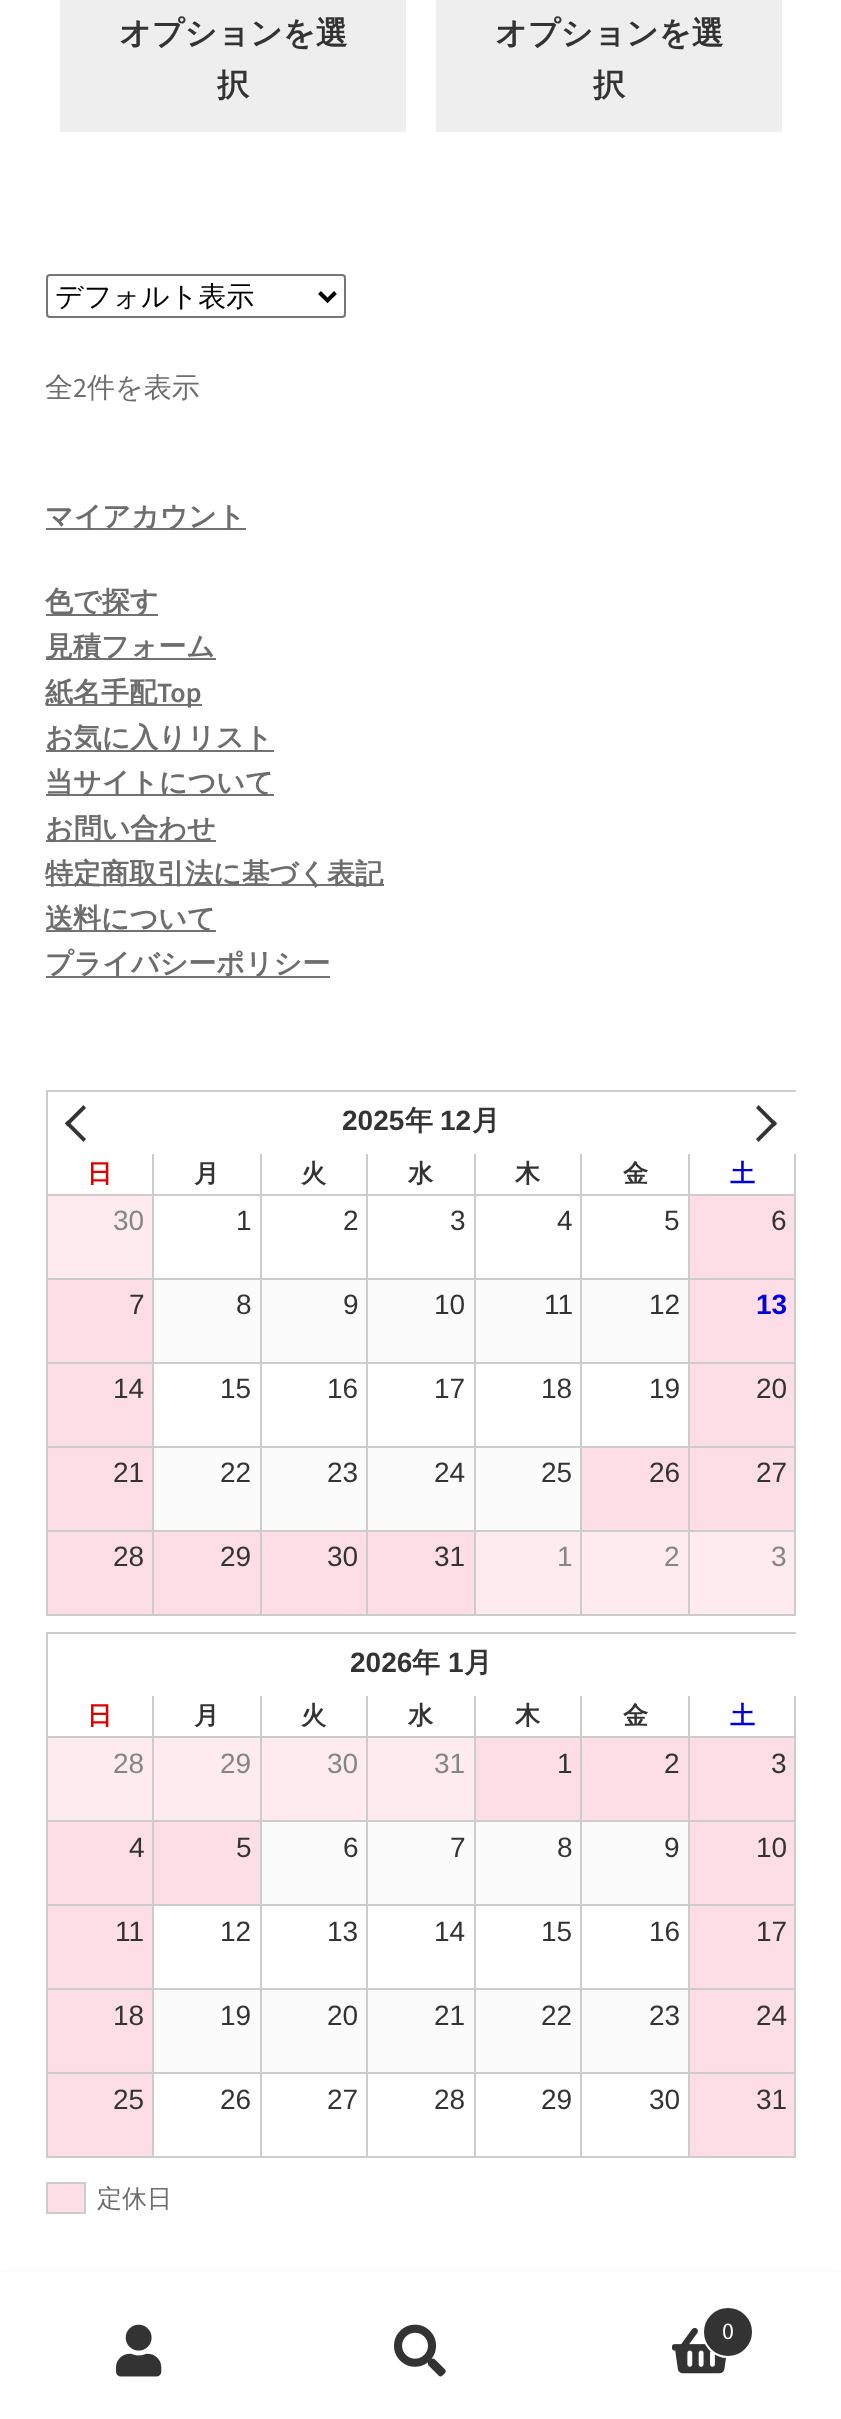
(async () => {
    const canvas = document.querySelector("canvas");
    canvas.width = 841;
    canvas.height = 2419;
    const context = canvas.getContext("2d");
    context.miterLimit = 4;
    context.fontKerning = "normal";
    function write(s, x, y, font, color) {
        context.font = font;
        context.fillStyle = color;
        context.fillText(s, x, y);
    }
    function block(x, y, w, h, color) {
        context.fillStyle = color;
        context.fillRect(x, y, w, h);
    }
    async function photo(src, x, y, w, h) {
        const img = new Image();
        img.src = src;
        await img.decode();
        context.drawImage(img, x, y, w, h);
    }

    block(0, 0, 841, 2419, "rgb(255, 255, 255)");
    block(60, 0, 346, 132, "rgb(238, 238, 238)");
    write("オプションを選", 119, 44, "bold 32px WenQuanYi Zen Hei", "rgb(51, 51, 51)");
    write("択", 217, 96, "bold 32px WenQuanYi Zen Hei", "rgb(51, 51, 51)");
    block(436, 0, 346, 132, "rgb(238, 238, 238)");
    write("オプションを選", 495, 44, "bold 32px WenQuanYi Zen Hei", "rgb(51, 51, 51)");
    write("択", 593, 96, "bold 32px WenQuanYi Zen Hei", "rgb(51, 51, 51)");
    context.beginPath();
    context.roundRect(47, 275, 298, 42, 3);
    context.strokeStyle = "rgb(118, 118, 118)";
    context.lineWidth = 2;
    context.stroke();
    context.beginPath();
    context.moveTo(319.5, 292.5);
    context.lineTo(327.5, 300.5);
    context.lineTo(335.5, 292.5);
    context.strokeStyle = "rgb(0, 0, 0)";
    context.lineWidth = 4;
    context.stroke();
    write("デフォルト表示", 55, 306, "500 28px WenQuanYi Zen Hei", "rgb(0, 0, 0)");
    write("全", 45, 397, "500 28px WenQuanYi Zen Hei", "rgb(109, 109, 109)");
    write("2", 73, 397, "28px Source Sans Pro", "rgb(109, 109, 109)");
    write("件を表示", 87, 397, "500 28px WenQuanYi Zen Hei", "rgb(109, 109, 109)");
    block(46, 528, 200, 2, "rgb(114, 114, 114)");
    write("マイアカウント", 45, 526, "bold 28px WenQuanYi Zen Hei", "rgb(109, 109, 109)");
    block(46, 614, 112, 2, "rgb(114, 114, 114)");
    write("色で探す", 45, 611, "bold 28px WenQuanYi Zen Hei", "rgb(109, 109, 109)");
    block(46, 658, 170, 2, "rgb(114, 114, 114)");
    write("見積フォーム", 45, 656, "bold 28px WenQuanYi Zen Hei", "rgb(109, 109, 109)");
    block(46, 704, 156, 2, "rgb(114, 114, 114)");
    write("紙名手配", 45, 702, "bold 28px WenQuanYi Zen Hei", "rgb(109, 109, 109)");
    write("Top", 157, 702, "600 28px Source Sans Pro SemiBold", "rgb(109, 109, 109)");
    block(46, 750, 228, 2, "rgb(114, 114, 114)");
    write("お気に入りリスト", 45, 747, "bold 28px WenQuanYi Zen Hei", "rgb(109, 109, 109)");
    block(46, 794, 228, 2, "rgb(114, 114, 114)");
    write("当サイトについて", 45, 792, "bold 28px WenQuanYi Zen Hei", "rgb(109, 109, 109)");
    block(46, 840, 170, 2, "rgb(114, 114, 114)");
    write("お問い合わせ", 45, 838, "bold 28px WenQuanYi Zen Hei", "rgb(109, 109, 109)");
    block(46, 884, 338, 2, "rgb(114, 114, 114)");
    write("特定商取引法に基づく表記", 45, 883, "bold 28px WenQuanYi Zen Hei", "rgb(109, 109, 109)");
    block(46, 930, 170, 2, "rgb(114, 114, 114)");
    write("送料について", 45, 928, "bold 28px WenQuanYi Zen Hei", "rgb(109, 109, 109)");
    block(46, 976, 284, 2, "rgb(114, 114, 114)");
    write("プライバシーポリシー", 45, 973, "bold 28px WenQuanYi Zen Hei", "rgb(109, 109, 109)");
    block(46, 1090, 750, 2, "rgb(204, 204, 204)");
    block(46, 1614, 750, 2, "rgb(204, 204, 204)");
    block(46, 1090, 2, 526, "rgb(204, 204, 204)");
    context.fillStyle = "rgb(51, 51, 51)";
    context.beginPath();
    context.moveTo(67.5, 1120.5);
    context.lineTo(86, 1139);
    context.lineTo(83.5, 1142);
    context.lineTo(65, 1123.5);
    context.closePath();
    context.fill();
    context.beginPath();
    context.moveTo(83.5, 1105);
    context.lineTo(86, 1108);
    context.lineTo(67.5, 1126.5);
    context.lineTo(65, 1123.5);
    context.closePath();
    context.fill();
    write("2025", 342, 1130, "bold 28px Liberation Sans", "rgb(51, 51, 51)");
    write("年", 405, 1130, "bold 28px WenQuanYi Zen Hei", "rgb(51, 51, 51)");
    write("12", 440, 1130, "bold 28px Liberation Sans", "rgb(51, 51, 51)");
    write("月", 472, 1130, "bold 28px WenQuanYi Zen Hei", "rgb(51, 51, 51)");
    context.beginPath();
    context.moveTo(758.5, 1105);
    context.lineTo(777, 1123.5);
    context.lineTo(774.5, 1126.5);
    context.lineTo(756, 1108);
    context.closePath();
    context.fill();
    context.beginPath();
    context.moveTo(774.5, 1120.5);
    context.lineTo(777, 1123.5);
    context.lineTo(758.5, 1142);
    context.lineTo(756, 1139);
    context.closePath();
    context.fill();
    block(152, 1154, 2, 40, "rgb(204, 204, 204)");
    write("日", 87, 1182, "bold 25px WenQuanYi Zen Hei", "rgb(221, 0, 0)");
    block(260, 1154, 2, 40, "rgb(204, 204, 204)");
    write("月", 194, 1182, "bold 25px WenQuanYi Zen Hei", "rgb(51, 51, 51)");
    block(366, 1154, 2, 40, "rgb(204, 204, 204)");
    write("火", 301, 1182, "bold 25px WenQuanYi Zen Hei", "rgb(51, 51, 51)");
    block(474, 1154, 2, 40, "rgb(204, 204, 204)");
    write("水", 408, 1182, "bold 25px WenQuanYi Zen Hei", "rgb(51, 51, 51)");
    block(580, 1154, 2, 40, "rgb(204, 204, 204)");
    write("木", 515, 1182, "bold 25px WenQuanYi Zen Hei", "rgb(51, 51, 51)");
    block(688, 1154, 2, 40, "rgb(204, 204, 204)");
    write("金", 623, 1182, "bold 25px WenQuanYi Zen Hei", "rgb(51, 51, 51)");
    block(794, 1154, 2, 40, "rgb(204, 204, 204)");
    write("土", 730, 1182, "bold 25px WenQuanYi Zen Hei", "rgb(0, 0, 221)");
    block(48, 1194, 748, 2, "rgb(204, 204, 204)");
    block(152, 1194, 2, 84, "rgb(204, 204, 204)");
    block(48, 1196, 104, 82, "rgb(254, 235, 240)");
    write("30", 113, 1230, "28px Liberation Sans", "rgb(133, 133, 133)");
    block(260, 1194, 2, 84, "rgb(204, 204, 204)");
    write("1", 236, 1230, "28px Liberation Sans", "rgb(51, 51, 51)");
    block(366, 1194, 2, 84, "rgb(204, 204, 204)");
    write("2", 343, 1230, "28px Liberation Sans", "rgb(51, 51, 51)");
    block(474, 1194, 2, 84, "rgb(204, 204, 204)");
    write("3", 450, 1230, "28px Liberation Sans", "rgb(51, 51, 51)");
    block(580, 1194, 2, 84, "rgb(204, 204, 204)");
    write("4", 557, 1230, "28px Liberation Sans", "rgb(51, 51, 51)");
    block(688, 1194, 2, 84, "rgb(204, 204, 204)");
    write("5", 664, 1230, "28px Liberation Sans", "rgb(51, 51, 51)");
    block(794, 1194, 2, 84, "rgb(204, 204, 204)");
    block(690, 1196, 104, 82, "rgb(253, 221, 230)");
    write("6", 771, 1230, "28px Liberation Sans", "rgb(51, 51, 51)");
    block(154, 1280, 534, 82, "rgb(251, 251, 251)");
    block(48, 1278, 748, 2, "rgb(204, 204, 204)");
    block(152, 1278, 2, 84, "rgb(204, 204, 204)");
    block(48, 1280, 104, 82, "rgb(253, 221, 230)");
    write("7", 129, 1314, "28px Liberation Sans", "rgb(51, 51, 51)");
    block(260, 1278, 2, 84, "rgb(204, 204, 204)");
    write("8", 236, 1314, "28px Liberation Sans", "rgb(51, 51, 51)");
    block(366, 1278, 2, 84, "rgb(204, 204, 204)");
    write("9", 343, 1314, "28px Liberation Sans", "rgb(51, 51, 51)");
    block(474, 1278, 2, 84, "rgb(204, 204, 204)");
    write("10", 434, 1314, "28px Liberation Sans", "rgb(51, 51, 51)");
    block(580, 1278, 2, 84, "rgb(204, 204, 204)");
    write("11", 544, 1314, "28px Liberation Sans", "rgb(51, 51, 51)");
    block(688, 1278, 2, 84, "rgb(204, 204, 204)");
    write("12", 649, 1314, "28px Liberation Sans", "rgb(51, 51, 51)");
    block(794, 1278, 2, 84, "rgb(204, 204, 204)");
    block(690, 1280, 104, 82, "rgb(253, 221, 230)");
    write("13", 756, 1314, "bold 28px Liberation Sans", "rgb(0, 0, 221)");
    block(48, 1362, 748, 2, "rgb(204, 204, 204)");
    block(152, 1362, 2, 84, "rgb(204, 204, 204)");
    block(48, 1364, 104, 82, "rgb(253, 221, 230)");
    write("14", 113, 1398, "28px Liberation Sans", "rgb(51, 51, 51)");
    block(260, 1362, 2, 84, "rgb(204, 204, 204)");
    write("15", 220, 1398, "28px Liberation Sans", "rgb(51, 51, 51)");
    block(366, 1362, 2, 84, "rgb(204, 204, 204)");
    write("16", 327, 1398, "28px Liberation Sans", "rgb(51, 51, 51)");
    block(474, 1362, 2, 84, "rgb(204, 204, 204)");
    write("17", 434, 1398, "28px Liberation Sans", "rgb(51, 51, 51)");
    block(580, 1362, 2, 84, "rgb(204, 204, 204)");
    write("18", 541, 1398, "28px Liberation Sans", "rgb(51, 51, 51)");
    block(688, 1362, 2, 84, "rgb(204, 204, 204)");
    write("19", 649, 1398, "28px Liberation Sans", "rgb(51, 51, 51)");
    block(794, 1362, 2, 84, "rgb(204, 204, 204)");
    block(690, 1364, 104, 82, "rgb(253, 221, 230)");
    write("20", 756, 1398, "28px Liberation Sans", "rgb(51, 51, 51)");
    block(154, 1448, 426, 82, "rgb(251, 251, 251)");
    block(48, 1446, 748, 2, "rgb(204, 204, 204)");
    block(152, 1446, 2, 84, "rgb(204, 204, 204)");
    block(48, 1448, 104, 82, "rgb(253, 221, 230)");
    write("21", 113, 1482, "28px Liberation Sans", "rgb(51, 51, 51)");
    block(260, 1446, 2, 84, "rgb(204, 204, 204)");
    write("22", 220, 1482, "28px Liberation Sans", "rgb(51, 51, 51)");
    block(366, 1446, 2, 84, "rgb(204, 204, 204)");
    write("23", 327, 1482, "28px Liberation Sans", "rgb(51, 51, 51)");
    block(474, 1446, 2, 84, "rgb(204, 204, 204)");
    write("24", 434, 1482, "28px Liberation Sans", "rgb(51, 51, 51)");
    block(580, 1446, 2, 84, "rgb(204, 204, 204)");
    write("25", 541, 1482, "28px Liberation Sans", "rgb(51, 51, 51)");
    block(688, 1446, 2, 84, "rgb(204, 204, 204)");
    block(582, 1448, 106, 82, "rgb(253, 221, 230)");
    write("26", 649, 1482, "28px Liberation Sans", "rgb(51, 51, 51)");
    block(794, 1446, 2, 84, "rgb(204, 204, 204)");
    block(690, 1448, 104, 82, "rgb(253, 221, 230)");
    write("27", 756, 1482, "28px Liberation Sans", "rgb(51, 51, 51)");
    block(48, 1530, 748, 2, "rgb(204, 204, 204)");
    block(152, 1530, 2, 84, "rgb(204, 204, 204)");
    block(48, 1532, 104, 82, "rgb(253, 221, 230)");
    write("28", 113, 1566, "28px Liberation Sans", "rgb(51, 51, 51)");
    block(260, 1530, 2, 84, "rgb(204, 204, 204)");
    block(154, 1532, 106, 82, "rgb(253, 221, 230)");
    write("29", 220, 1566, "28px Liberation Sans", "rgb(51, 51, 51)");
    block(366, 1530, 2, 84, "rgb(204, 204, 204)");
    block(262, 1532, 104, 82, "rgb(253, 221, 230)");
    write("30", 327, 1566, "28px Liberation Sans", "rgb(51, 51, 51)");
    block(474, 1530, 2, 84, "rgb(204, 204, 204)");
    block(368, 1532, 106, 82, "rgb(253, 221, 230)");
    write("31", 434, 1566, "28px Liberation Sans", "rgb(51, 51, 51)");
    block(580, 1530, 2, 84, "rgb(204, 204, 204)");
    block(476, 1532, 104, 82, "rgb(254, 235, 240)");
    write("1", 557, 1566, "28px Liberation Sans", "rgb(133, 133, 133)");
    block(688, 1530, 2, 84, "rgb(204, 204, 204)");
    block(582, 1532, 106, 82, "rgb(254, 235, 240)");
    write("2", 664, 1566, "28px Liberation Sans", "rgb(133, 133, 133)");
    block(794, 1530, 2, 84, "rgb(204, 204, 204)");
    block(690, 1532, 104, 82, "rgb(254, 235, 240)");
    write("3", 771, 1566, "28px Liberation Sans", "rgb(133, 133, 133)");
    block(46, 1632, 750, 2, "rgb(204, 204, 204)");
    block(46, 2156, 750, 2, "rgb(204, 204, 204)");
    block(46, 1632, 2, 526, "rgb(204, 204, 204)");
    write("2026", 350, 1672, "bold 28px Liberation Sans", "rgb(51, 51, 51)");
    write("年", 412, 1672, "bold 28px WenQuanYi Zen Hei", "rgb(51, 51, 51)");
    write("1", 448, 1672, "bold 28px Liberation Sans", "rgb(51, 51, 51)");
    write("月", 464, 1672, "bold 28px WenQuanYi Zen Hei", "rgb(51, 51, 51)");
    block(152, 1696, 2, 40, "rgb(204, 204, 204)");
    write("日", 87, 1724, "bold 25px WenQuanYi Zen Hei", "rgb(221, 0, 0)");
    block(260, 1696, 2, 40, "rgb(204, 204, 204)");
    write("月", 194, 1724, "bold 25px WenQuanYi Zen Hei", "rgb(51, 51, 51)");
    block(366, 1696, 2, 40, "rgb(204, 204, 204)");
    write("火", 301, 1724, "bold 25px WenQuanYi Zen Hei", "rgb(51, 51, 51)");
    block(474, 1696, 2, 40, "rgb(204, 204, 204)");
    write("水", 408, 1724, "bold 25px WenQuanYi Zen Hei", "rgb(51, 51, 51)");
    block(580, 1696, 2, 40, "rgb(204, 204, 204)");
    write("木", 515, 1724, "bold 25px WenQuanYi Zen Hei", "rgb(51, 51, 51)");
    block(688, 1696, 2, 40, "rgb(204, 204, 204)");
    write("金", 623, 1724, "bold 25px WenQuanYi Zen Hei", "rgb(51, 51, 51)");
    block(794, 1696, 2, 40, "rgb(204, 204, 204)");
    write("土", 730, 1724, "bold 25px WenQuanYi Zen Hei", "rgb(0, 0, 221)");
    block(48, 1736, 748, 2, "rgb(204, 204, 204)");
    block(152, 1736, 2, 84, "rgb(204, 204, 204)");
    block(48, 1738, 104, 82, "rgb(254, 235, 240)");
    write("28", 113, 1773, "28px Liberation Sans", "rgb(133, 133, 133)");
    block(260, 1736, 2, 84, "rgb(204, 204, 204)");
    block(154, 1738, 106, 82, "rgb(254, 235, 240)");
    write("29", 220, 1773, "28px Liberation Sans", "rgb(133, 133, 133)");
    block(366, 1736, 2, 84, "rgb(204, 204, 204)");
    block(262, 1738, 104, 82, "rgb(254, 235, 240)");
    write("30", 327, 1773, "28px Liberation Sans", "rgb(133, 133, 133)");
    block(474, 1736, 2, 84, "rgb(204, 204, 204)");
    block(368, 1738, 106, 82, "rgb(254, 235, 240)");
    write("31", 434, 1773, "28px Liberation Sans", "rgb(133, 133, 133)");
    block(580, 1736, 2, 84, "rgb(204, 204, 204)");
    block(476, 1738, 104, 82, "rgb(253, 221, 230)");
    write("1", 557, 1773, "28px Liberation Sans", "rgb(51, 51, 51)");
    block(688, 1736, 2, 84, "rgb(204, 204, 204)");
    block(582, 1738, 106, 82, "rgb(253, 221, 230)");
    write("2", 664, 1773, "28px Liberation Sans", "rgb(51, 51, 51)");
    block(794, 1736, 2, 84, "rgb(204, 204, 204)");
    block(690, 1738, 104, 82, "rgb(253, 221, 230)");
    write("3", 771, 1773, "28px Liberation Sans", "rgb(51, 51, 51)");
    block(262, 1822, 426, 82, "rgb(251, 251, 251)");
    block(48, 1820, 748, 2, "rgb(204, 204, 204)");
    block(152, 1820, 2, 84, "rgb(204, 204, 204)");
    block(48, 1822, 104, 82, "rgb(253, 221, 230)");
    write("4", 129, 1857, "28px Liberation Sans", "rgb(51, 51, 51)");
    block(260, 1820, 2, 84, "rgb(204, 204, 204)");
    block(154, 1822, 106, 82, "rgb(253, 221, 230)");
    write("5", 236, 1857, "28px Liberation Sans", "rgb(51, 51, 51)");
    block(366, 1820, 2, 84, "rgb(204, 204, 204)");
    write("6", 343, 1857, "28px Liberation Sans", "rgb(51, 51, 51)");
    block(474, 1820, 2, 84, "rgb(204, 204, 204)");
    write("7", 450, 1857, "28px Liberation Sans", "rgb(51, 51, 51)");
    block(580, 1820, 2, 84, "rgb(204, 204, 204)");
    write("8", 557, 1857, "28px Liberation Sans", "rgb(51, 51, 51)");
    block(688, 1820, 2, 84, "rgb(204, 204, 204)");
    write("9", 664, 1857, "28px Liberation Sans", "rgb(51, 51, 51)");
    block(794, 1820, 2, 84, "rgb(204, 204, 204)");
    block(690, 1822, 104, 82, "rgb(253, 221, 230)");
    write("10", 756, 1857, "28px Liberation Sans", "rgb(51, 51, 51)");
    block(48, 1904, 748, 2, "rgb(204, 204, 204)");
    block(152, 1904, 2, 84, "rgb(204, 204, 204)");
    block(48, 1906, 104, 82, "rgb(253, 221, 230)");
    write("11", 115, 1941, "28px Liberation Sans", "rgb(51, 51, 51)");
    block(260, 1904, 2, 84, "rgb(204, 204, 204)");
    write("12", 220, 1941, "28px Liberation Sans", "rgb(51, 51, 51)");
    block(366, 1904, 2, 84, "rgb(204, 204, 204)");
    write("13", 327, 1941, "28px Liberation Sans", "rgb(51, 51, 51)");
    block(474, 1904, 2, 84, "rgb(204, 204, 204)");
    write("14", 434, 1941, "28px Liberation Sans", "rgb(51, 51, 51)");
    block(580, 1904, 2, 84, "rgb(204, 204, 204)");
    write("15", 541, 1941, "28px Liberation Sans", "rgb(51, 51, 51)");
    block(688, 1904, 2, 84, "rgb(204, 204, 204)");
    write("16", 649, 1941, "28px Liberation Sans", "rgb(51, 51, 51)");
    block(794, 1904, 2, 84, "rgb(204, 204, 204)");
    block(690, 1906, 104, 82, "rgb(253, 221, 230)");
    write("17", 756, 1941, "28px Liberation Sans", "rgb(51, 51, 51)");
    block(154, 1990, 534, 82, "rgb(251, 251, 251)");
    block(48, 1988, 748, 2, "rgb(204, 204, 204)");
    block(152, 1988, 2, 84, "rgb(204, 204, 204)");
    block(48, 1990, 104, 82, "rgb(253, 221, 230)");
    write("18", 113, 2025, "28px Liberation Sans", "rgb(51, 51, 51)");
    block(260, 1988, 2, 84, "rgb(204, 204, 204)");
    write("19", 220, 2025, "28px Liberation Sans", "rgb(51, 51, 51)");
    block(366, 1988, 2, 84, "rgb(204, 204, 204)");
    write("20", 327, 2025, "28px Liberation Sans", "rgb(51, 51, 51)");
    block(474, 1988, 2, 84, "rgb(204, 204, 204)");
    write("21", 434, 2025, "28px Liberation Sans", "rgb(51, 51, 51)");
    block(580, 1988, 2, 84, "rgb(204, 204, 204)");
    write("22", 541, 2025, "28px Liberation Sans", "rgb(51, 51, 51)");
    block(688, 1988, 2, 84, "rgb(204, 204, 204)");
    write("23", 649, 2025, "28px Liberation Sans", "rgb(51, 51, 51)");
    block(794, 1988, 2, 84, "rgb(204, 204, 204)");
    block(690, 1990, 104, 82, "rgb(253, 221, 230)");
    write("24", 756, 2025, "28px Liberation Sans", "rgb(51, 51, 51)");
    block(48, 2072, 748, 2, "rgb(204, 204, 204)");
    block(152, 2072, 2, 84, "rgb(204, 204, 204)");
    block(48, 2074, 104, 82, "rgb(253, 221, 230)");
    write("25", 113, 2109, "28px Liberation Sans", "rgb(51, 51, 51)");
    block(260, 2072, 2, 84, "rgb(204, 204, 204)");
    write("26", 220, 2109, "28px Liberation Sans", "rgb(51, 51, 51)");
    block(366, 2072, 2, 84, "rgb(204, 204, 204)");
    write("27", 327, 2109, "28px Liberation Sans", "rgb(51, 51, 51)");
    block(474, 2072, 2, 84, "rgb(204, 204, 204)");
    write("28", 434, 2109, "28px Liberation Sans", "rgb(51, 51, 51)");
    block(580, 2072, 2, 84, "rgb(204, 204, 204)");
    write("29", 541, 2109, "28px Liberation Sans", "rgb(51, 51, 51)");
    block(688, 2072, 2, 84, "rgb(204, 204, 204)");
    write("30", 649, 2109, "28px Liberation Sans", "rgb(51, 51, 51)");
    block(794, 2072, 2, 84, "rgb(204, 204, 204)");
    block(690, 2074, 104, 82, "rgb(253, 221, 230)");
    write("31", 756, 2109, "28px Liberation Sans", "rgb(51, 51, 51)");
    context.fillStyle = "rgb(253, 221, 230)";
    context.beginPath();
    context.rect(47, 2183, 38, 30);
    context.fill();
    context.strokeStyle = "rgb(204, 204, 204)";
    context.lineWidth = 2;
    context.stroke();
    write("定休日", 97, 2207, "500 25px WenQuanYi Zen Hei", "rgb(109, 109, 109)");
    context.fillStyle = "rgba(0, 0, 0, 0.7)";
    context.filter = "blur(6px)";
    context.beginPath();
    context.rect(0, 2282, 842, 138);
    context.fill();
    context.filter = "none";
    block(0, 2272, 841, 12, "rgb(255, 255, 255)");
    block(0, 2284, 841, 135, "rgb(255, 255, 255)");
    await photo("media/1.png", 394, 2324, 52, 53);
    await photo("media/2.png", 116, 2324, 46, 53);
    await photo("media/3.png", 672, 2327, 55, 47);
    context.fillStyle = "rgb(51, 51, 51)";
    context.beginPath();
    context.arc(728, 2332, 25, 0, Math.PI * 2);
    context.fill();
    context.strokeStyle = "rgb(255, 255, 255)";
    context.stroke();
    write("0", 722, 2339, "24px Source Sans Pro", "rgb(255, 255, 255)");
})();
